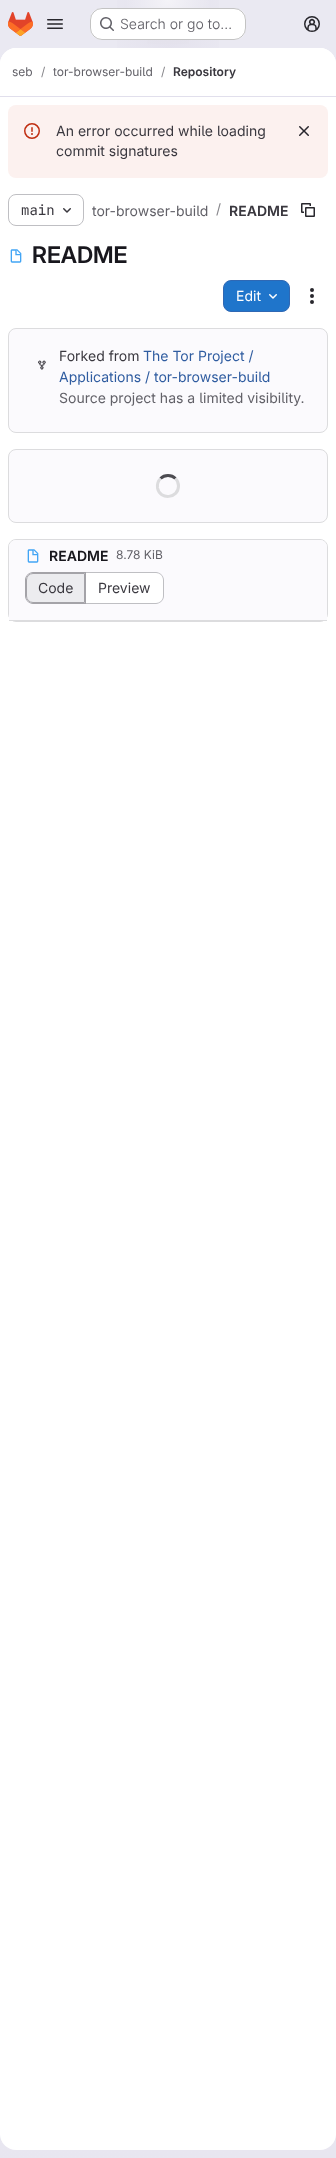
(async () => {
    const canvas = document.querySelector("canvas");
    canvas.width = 336;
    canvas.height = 2158;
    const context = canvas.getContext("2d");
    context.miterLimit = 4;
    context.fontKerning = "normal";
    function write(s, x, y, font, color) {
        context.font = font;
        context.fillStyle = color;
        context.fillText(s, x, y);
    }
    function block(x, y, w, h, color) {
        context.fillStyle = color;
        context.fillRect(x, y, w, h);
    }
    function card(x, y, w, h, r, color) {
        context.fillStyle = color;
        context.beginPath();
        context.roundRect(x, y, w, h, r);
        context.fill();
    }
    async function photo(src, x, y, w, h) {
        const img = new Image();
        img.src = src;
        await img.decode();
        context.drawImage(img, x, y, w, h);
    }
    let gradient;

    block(0, 0, 336, 2158, "rgb(255, 255, 255)");
    gradient = context.createLinearGradient(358, 2154, -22, 3.8);
    gradient.addColorStop(0, "rgb(232, 230, 240)");
    gradient.addColorStop(0.7, "rgb(234, 233, 242)");
    context.fillStyle = gradient;
    context.fillRect(0, 0, 336, 2158);
    gradient = context.createRadialGradient(168, 0, 0, 168, 0, 168);
    gradient.addColorStop(0, "rgb(228, 226, 237)");
    gradient.addColorStop(0.42, "rgba(228, 226, 237, 0)");
    context.fillStyle = gradient;
    context.beginPath();
    context.rect(117, 0, 102, 48);
    context.save();
    context.clip();
    context.scale(1, 2158 / 168);
    context.fillRect(0, 0, 336, 168);
    context.restore();
    gradient = context.createRadialGradient(168, 0, 0, 168, 0, 168);
    gradient.addColorStop(0, "rgb(228, 226, 236)");
    gradient.addColorStop(0.3, "rgba(228, 226, 236, 0)");
    context.fillStyle = gradient;
    context.beginPath();
    context.rect(147, 12, 42, 32);
    context.save();
    context.clip();
    context.scale(1, 2158 / 168);
    context.fillRect(0, 0, 336, 168);
    context.restore();
    gradient = context.createRadialGradient(168, 0, 0, 168, 0, 2165);
    gradient.addColorStop(0, "rgba(255, 255, 255, 0.6)");
    gradient.addColorStop(0.02, "rgba(255, 255, 255, 0)");
    context.fillStyle = gradient;
    context.fillRect(127, 0, 82, 8);
    await photo("media/1.png", 8, 12, 25, 24);
    await photo("media/2.png", 47, 19, 16, 10);
    card(90, 8, 156, 32, 12, "rgb(255, 255, 255)");
    context.beginPath();
    context.roundRect(90.5, 8.5, 155, 31, 11.5);
    context.strokeStyle = "rgba(5, 5, 6, 0.24)";
    context.stroke();
    await photo("media/3.png", 100, 17, 14, 14);
    write("Search or go to…", 120, 29, "300 14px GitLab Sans", "rgb(98, 97, 104)");
    await photo("media/4.png", 304, 16, 16, 16);
    card(0, 48, 336, 2102, 16, "rgb(255, 255, 255)");
    context.beginPath();
    context.roundRect(0, 48, 336, 49, [16, 16, 0, 0]);
    context.fill();
    block(0, 96, 336, 1, "rgb(225, 223, 236)");
    write("seb", 12, 76, "12px GitLab Sans", "rgb(98, 97, 104)");
    write("/", 41, 76, "12px GitLab Sans", "rgb(137, 136, 141)");
    write("tor-browser-build", 53, 76, "12px GitLab Sans", "rgb(98, 97, 104)");
    write("/", 161, 76, "12px GitLab Sans", "rgb(137, 136, 141)");
    write("Repository", 173, 76, "600 12px 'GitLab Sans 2'", "rgb(58, 56, 63)");
    card(8, 105, 320, 73, 8, "rgb(252, 241, 239)");
    await photo("media/5.png", 24, 123, 16, 16);
    write("An error occurred while loading", 56, 136, "14px GitLab Sans", "rgb(58, 56, 63)");
    write("commit signatures", 56, 156, "14px GitLab Sans", "rgb(58, 56, 63)");
    await photo("media/6.png", 299, 126, 10, 10);
    context.beginPath();
    context.roundRect(8.5, 194.5, 75, 31, 7.5);
    context.strokeStyle = "rgb(191, 191, 195)";
    context.stroke();
    write("main", 21, 215, "14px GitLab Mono", "rgb(58, 56, 63)");
    await photo("media/7.png", 63, 208, 8, 5);
    write("tor-browser-build", 92, 216, "14px GitLab Sans", "rgb(98, 97, 104)");
    write("/", 216, 214, "14px GitLab Sans", "rgb(137, 136, 141)");
    write("README", 229, 216, "600 14px 'GitLab Sans 2'", "rgb(58, 56, 63)");
    await photo("media/8.png", 301, 203, 14, 14);
    await photo("media/9.png", 10, 249, 12, 14);
    write("README", 32, 263, "600 23px GitLab Sans", "rgb(24, 23, 29)");
    context.fillStyle = "rgb(31, 117, 203)";
    context.beginPath();
    context.roundRect(223.5, 280.5, 66, 31, 7.5);
    context.fill();
    context.strokeStyle = "rgb(47, 104, 180)";
    context.stroke();
    write("Edit", 236, 301, "14px GitLab Sans", "rgb(255, 255, 255)");
    await photo("media/10.png", 269, 294, 8, 5);
    await photo("media/11.png", 310, 288, 4, 16);
    context.fillStyle = "rgb(251, 250, 253)";
    context.beginPath();
    context.roundRect(8.5, 328.5, 319, 104, 7.5);
    context.fill();
    context.strokeStyle = "rgb(220, 220, 222)";
    context.stroke();
    await photo("media/12.png", 38, 360, 8, 10);
    write("Forked from", 59, 361, "14px GitLab Sans", "rgb(58, 56, 63)");
    write("The Tor Project /", 143, 361, "14px GitLab Sans", "rgb(47, 92, 160)");
    write("Applications / tor-browser-build", 59, 382, "14px GitLab Sans", "rgb(47, 92, 160)");
    write("Source project has a limited visibility.", 59, 403, "14px GitLab Sans", "rgb(98, 97, 104)");
    context.fillStyle = "rgb(251, 250, 253)";
    context.beginPath();
    context.roundRect(8.5, 449.5, 319, 73, 7.5);
    context.fill();
    context.stroke();
    context.beginPath();
    context.moveTo(160.5, 478.5);
    context.bezierCurveTo(164.5, 474.5, 171.5, 474.5, 175.5, 478.5);
    context.strokeStyle = "rgb(76, 75, 81)";
    context.lineWidth = 3;
    context.stroke();
    context.beginPath();
    context.moveTo(175.5, 478.5);
    context.bezierCurveTo(177.5, 480.5, 178.5, 483, 178.5, 486);
    context.bezierCurveTo(178.5, 498.5, 160, 500.5, 157.5, 488);
    context.bezierCurveTo(157, 484.5, 158, 481, 160.5, 478.5);
    context.strokeStyle = "rgb(220, 220, 222)";
    context.stroke();
    context.beginPath();
    context.roundRect(8.5, 539.5, 319, 82, 7.5);
    context.lineWidth = 1;
    context.stroke();
    context.beginPath();
    context.roundRect(9, 540, 318, 81, [7, 7, 0, 0]);
    context.fill();
    block(9, 620, 318, 1, "rgb(220, 220, 222)");
    await photo("media/13.png", 27, 549, 12, 14);
    write("README", 49, 561, "600 14px 'GitLab Sans 2'", "rgb(24, 23, 29)");
    write("8.78 KiB", 116, 559, "12px GitLab Sans", "rgb(98, 97, 104)");
    context.fillStyle = "rgb(236, 236, 239)";
    context.beginPath();
    context.roundRect(26.5, 573.5, 58, 29, [6.5, 0, 0, 6.5]);
    context.fill();
    context.strokeStyle = "rgb(164, 163, 168)";
    context.stroke();
    context.fillStyle = "rgb(164, 163, 168)";
    context.beginPath();
    context.moveTo(33, 572);
    context.lineTo(85, 572);
    context.lineTo(85, 604);
    context.lineTo(33, 604);
    context.bezierCurveTo(29, 604, 25, 600, 25, 596);
    context.lineTo(25, 580);
    context.bezierCurveTo(25, 576, 29, 572, 33, 572);
    context.closePath();
    context.moveTo(33, 573);
    context.lineTo(85, 573);
    context.lineTo(85, 603);
    context.lineTo(33, 603);
    context.bezierCurveTo(29, 603, 26, 600, 26, 596);
    context.lineTo(26, 580);
    context.bezierCurveTo(26, 576, 29, 573, 33, 573);
    context.closePath();
    context.fill("evenodd");
    write("Code", 38, 593, "14px GitLab Sans", "rgb(58, 56, 63)");
    context.fillStyle = "rgb(255, 255, 255)";
    context.beginPath();
    context.roundRect(86, 573, 77, 30, [0, 7, 7, 0]);
    context.fill();
    context.fillStyle = "rgb(191, 191, 195)";
    context.beginPath();
    context.moveTo(86, 572);
    context.lineTo(156, 572);
    context.bezierCurveTo(160, 572, 164, 576, 164, 580);
    context.lineTo(164, 596);
    context.bezierCurveTo(164, 600, 160, 604, 156, 604);
    context.lineTo(86, 604);
    context.closePath();
    context.moveTo(86, 573);
    context.lineTo(156, 573);
    context.bezierCurveTo(160, 573, 163, 576, 163, 580);
    context.lineTo(163, 596);
    context.bezierCurveTo(163, 600, 160, 603, 156, 603);
    context.lineTo(86, 603);
    context.closePath();
    context.fill("evenodd");
    block(85, 572, 1, 32, "rgb(164, 163, 168)");
    write("Preview", 98, 593, "14px GitLab Sans", "rgb(58, 56, 63)");
})();
